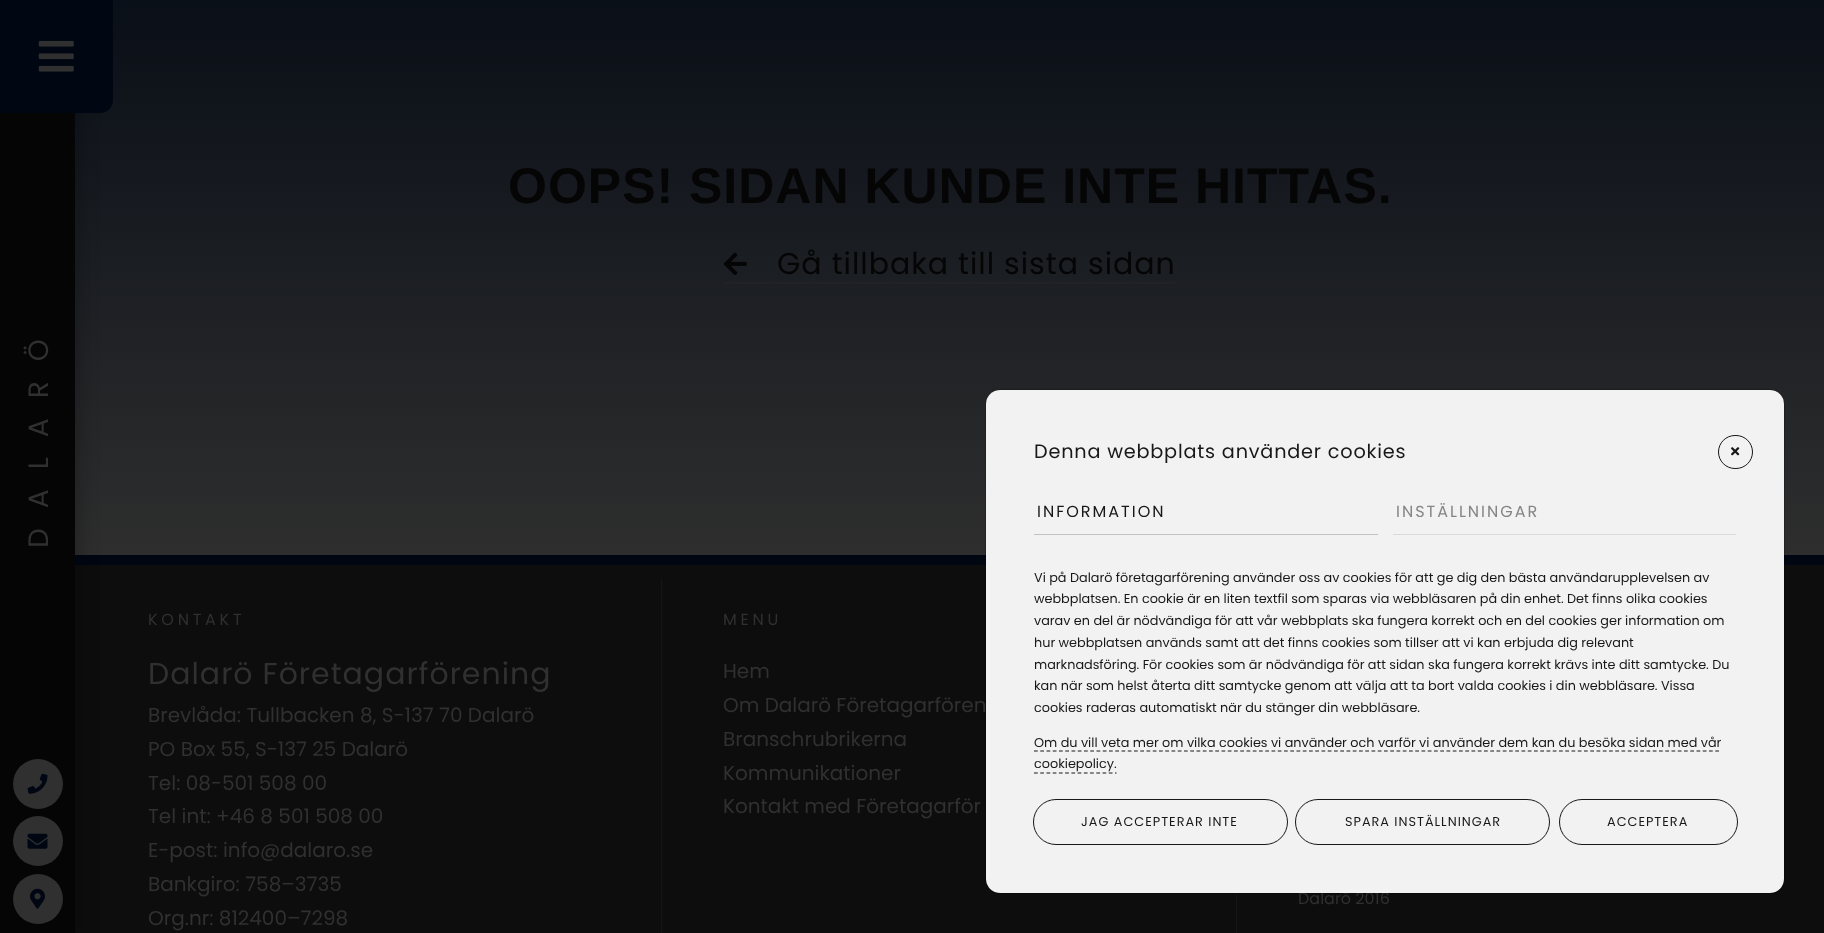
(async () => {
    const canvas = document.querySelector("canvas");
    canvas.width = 1824;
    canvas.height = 933;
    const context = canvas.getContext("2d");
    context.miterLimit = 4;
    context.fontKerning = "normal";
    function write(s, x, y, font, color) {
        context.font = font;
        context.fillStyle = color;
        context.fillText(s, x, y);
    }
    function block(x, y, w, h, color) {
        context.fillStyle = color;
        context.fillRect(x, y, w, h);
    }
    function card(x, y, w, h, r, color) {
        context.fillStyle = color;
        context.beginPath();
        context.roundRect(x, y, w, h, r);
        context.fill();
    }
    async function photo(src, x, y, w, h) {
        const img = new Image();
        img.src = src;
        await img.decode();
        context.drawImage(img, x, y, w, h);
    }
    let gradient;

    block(0, 0, 1824, 933, "rgb(255, 255, 255)");
    gradient = context.createLinearGradient(950, -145, 950, 555);
    gradient.addColorStop(0, "rgb(0, 7, 18)");
    gradient.addColorStop(1, "rgb(46, 46, 46)");
    context.fillStyle = gradient;
    context.fillRect(75, 0, 1749, 555);
    context.letterSpacing = "1px";
    write("OOPS! SIDAN KUNDE INTE HITTAS.", 508, 203, "bold 50px Liberation Sans", "rgb(5, 5, 5)");
    context.beginPath();
    context.moveTo(724, 283);
    context.lineTo(1176, 283);
    context.strokeStyle = "rgb(46, 46, 46)";
    context.lineWidth = 1.2;
    context.setLineDash([1.25, 1.25]);
    context.stroke();
    await photo("media/1.png", 723, 252, 24, 23);
    write("Gå tillbaka till sista sidan", 777, 274, "30px Poppins", "rgb(5, 5, 5)");
    block(75, 555, 1749, 10, "rgb(0, 7, 18)");
    block(75, 565, 1749, 368, "rgb(13, 13, 13)");
    context.fillStyle = "rgba(0, 0, 0, 0.2)";
    context.filter = "blur(9.5px)";
    context.beginPath();
    context.rect(-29, 0, 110, 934);
    context.fill();
    context.filter = "none";
    block(0, 113, 75, 820, "rgb(5, 5, 5)");
    context.fillStyle = "rgb(0, 7, 18)";
    context.beginPath();
    context.roundRect(0, 0, 113, 113, [0, 0, 13, 0]);
    context.fill();
    await photo("media/2.png", 38, 40, 36, 32);
    context.letterSpacing = "20px";
    context.font = "28px Poppins";
    context.fillStyle = "rgb(48, 48, 48)";
    context.save();
    context.translate(48, 548);
    context.rotate(-90 * Math.PI / 180);
    context.fillText("DALARÖ", 0, 0);
    context.restore();
    context.beginPath();
    context.arc(38, 784, 25, 0, Math.PI * 2);
    context.fill();
    await photo("media/3.png", 27, 773, 21, 21);
    context.beginPath();
    context.arc(38, 841, 25, 0, Math.PI * 2);
    context.fill();
    await photo("media/4.png", 27, 833, 21, 16);
    context.beginPath();
    context.arc(38, 899, 25, 0, Math.PI * 2);
    context.fill();
    await photo("media/5.png", 30, 888, 15, 21);
    context.letterSpacing = "0px";
    write("Dalarö 2016", 1298, 904, "16px Poppins", "rgb(48, 48, 48)");
    card(986, 390, 798, 503, 14, "rgb(242, 242, 242)");
    block(1236, 893, 1, 40, "rgb(21, 21, 21)");
    context.beginPath();
    context.roundRect(985.5, 389.5, 799, 504, 14.5);
    context.strokeStyle = "rgba(0, 0, 0, 0.2)";
    context.lineWidth = 1;
    context.setLineDash([]);
    context.stroke();
    context.letterSpacing = "0.8px";
    write("Denna webbplats använder cookies", 1034, 458, "19.25px Poppins", "rgb(24, 24, 24)");
    context.beginPath();
    context.roundRect(1718.5, 435.5, 34, 33, 16.5);
    context.strokeStyle = "rgb(24, 24, 24)";
    context.stroke();
    await photo("media/6.png", 1731, 447, 9, 9);
    block(1034, 534, 344, 1, "rgb(194, 194, 194)");
    context.letterSpacing = "2px";
    write("INFORMATION", 1037, 517, "16px Poppins", "rgb(24, 24, 24)");
    block(1393, 534, 343, 1, "rgb(218, 218, 218)");
    write("INSTÄLLNINGAR", 1396, 517, "16px Poppins", "rgb(133, 133, 133)");
    context.letterSpacing = "0px";
    write("Vi på Dalarö företagarförening använder oss av cookies för att ge dig den bästa användarupplevelsen av", 1034, 582, "12.8px Poppins", "rgb(24, 24, 24)");
    write("webbplatsen. En cookie är en liten textfil som sparas via webbläsaren på din enhet. Det finns olika cookies", 1034, 603, "12.8px Poppins", "rgb(24, 24, 24)");
    write("varav en del är nödvändiga för att vår webbplats ska fungera korrekt och en del cookies ger information om", 1034, 625, "12.8px Poppins", "rgb(24, 24, 24)");
    write("hur webbplatsen används samt att det finns cookies som tillser att vi kan erbjuda dig relevant", 1034, 647, "12.8px Poppins", "rgb(24, 24, 24)");
    write("marknadsföring. För cookies som är nödvändiga för att sidan ska fungera korrekt krävs inte ditt samtycke. Du", 1034, 669, "12.8px Poppins", "rgb(24, 24, 24)");
    write("kan när som helst återta ditt samtycke genom att välja att ta bort valda cookies i din webbläsare. Vissa", 1034, 690, "12.8px Poppins", "rgb(24, 24, 24)");
    write("cookies raderas automatiskt när du stänger din webbläsare.", 1034, 712, "12.8px Poppins", "rgb(24, 24, 24)");
    write("Om du vill veta mer om vilka cookies vi använder och varför vi använder dem kan du besöka sidan med vår", 1034, 747, "12.8px Poppins", "rgb(24, 24, 24)");
    context.beginPath();
    context.moveTo(1034, 751);
    context.lineTo(1721.5, 751);
    context.setLineDash([3.75, 2.5]);
    context.stroke();
    write("cookiepolicy.", 1034, 768, "12.8px Poppins", "rgb(24, 24, 24)");
    context.beginPath();
    context.moveTo(1034, 773);
    context.lineTo(1116.5, 773);
    context.setLineDash([3.75, 2.48]);
    context.stroke();
    context.beginPath();
    context.roundRect(1033.5, 799.5, 254, 45, 22.5);
    context.setLineDash([]);
    context.stroke();
    context.letterSpacing = "1px";
    write("JAG ACCEPTERAR INTE", 1081, 826, "12.8px Poppins", "rgb(24, 24, 24)");
    context.beginPath();
    context.roundRect(1295.5, 799.5, 254, 45, 22.5);
    context.stroke();
    write("SPARA INSTÄLLNINGAR", 1345, 826, "12.8px Poppins", "rgb(24, 24, 24)");
    context.beginPath();
    context.roundRect(1559.5, 799.5, 178, 45, 22.5);
    context.stroke();
    write("ACCEPTERA", 1607, 826, "12.8px Poppins", "rgb(24, 24, 24)");
    block(661, 578, 1, 355, "rgb(21, 21, 21)");
    context.letterSpacing = "3.75px";
    write("KONTAKT", 148, 625, "16px Poppins", "rgb(48, 48, 48)");
    context.letterSpacing = "1px";
    write("Dalarö Företagarförening", 148, 684, "30px Poppins", "rgb(48, 48, 48)");
    context.letterSpacing = "0px";
    write("Brevlåda: Tullbacken 8, S-137 70 Dalarö", 148, 722, "20px Poppins", "rgb(48, 48, 48)");
    write("PO Box 55, S-137 25 Dalarö", 148, 756, "20px Poppins", "rgb(48, 48, 48)");
    write("Tel: 08-501 508 00", 148, 790, "20px Poppins", "rgb(48, 48, 48)");
    write("Tel int: +46 8 501 508 00", 148, 823, "20px Poppins", "rgb(48, 48, 48)");
    write("E-post: info@dalaro.se", 148, 857, "20px Poppins", "rgb(48, 48, 48)");
    write("Bankgiro: 758–3735", 148, 891, "20px Poppins", "rgb(48, 48, 48)");
    write("Org.nr: 812400–7298", 148, 925, "20px Poppins", "rgb(48, 48, 48)");
    context.letterSpacing = "3.75px";
    write("MENU", 723, 625, "16px Poppins", "rgb(48, 48, 48)");
    context.letterSpacing = "0px";
    write("Hem", 723, 678, "20px Poppins", "rgb(48, 48, 48)");
    write("Om Dalarö Företagarfören", 723, 712, "20px Poppins", "rgb(48, 48, 48)");
    write("Branschrubrikerna", 723, 746, "20px Poppins", "rgb(48, 48, 48)");
    write("Kommunikationer", 723, 780, "20px Poppins", "rgb(48, 48, 48)");
    write("Kontakt med Företagarför", 723, 813, "20px Poppins", "rgb(48, 48, 48)");
})();
